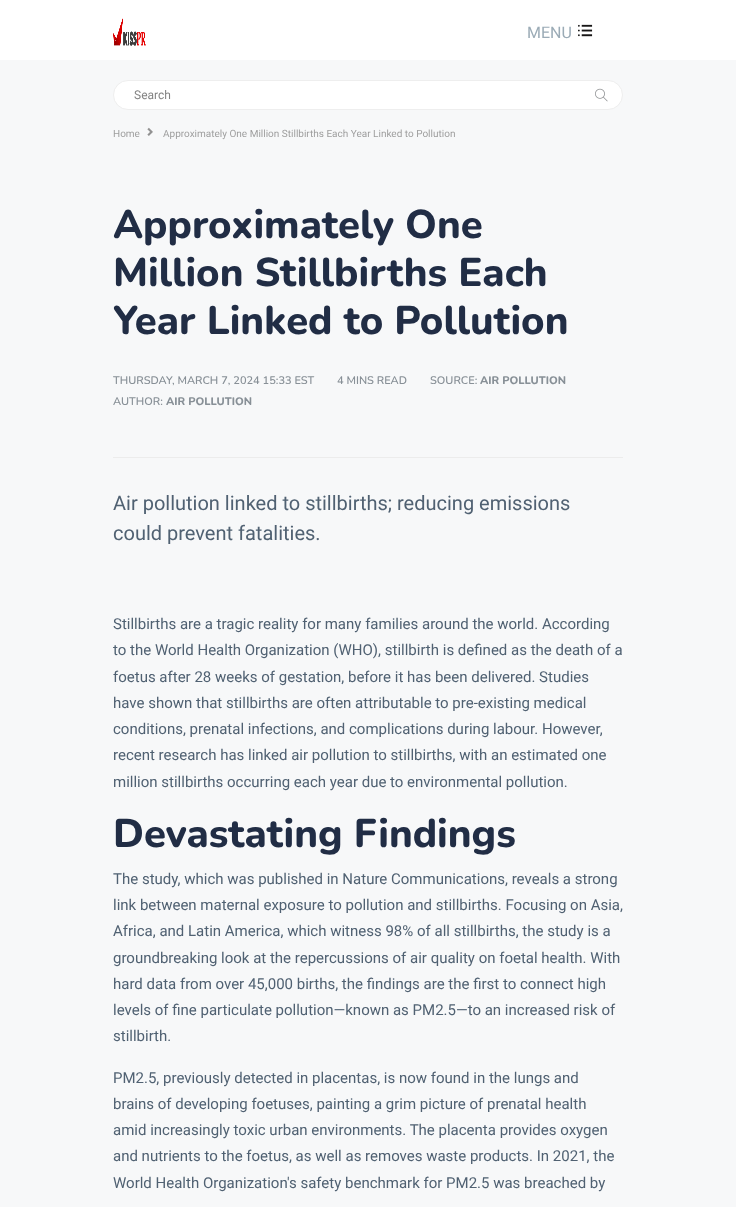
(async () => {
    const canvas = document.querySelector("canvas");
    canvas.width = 736;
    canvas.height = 1207;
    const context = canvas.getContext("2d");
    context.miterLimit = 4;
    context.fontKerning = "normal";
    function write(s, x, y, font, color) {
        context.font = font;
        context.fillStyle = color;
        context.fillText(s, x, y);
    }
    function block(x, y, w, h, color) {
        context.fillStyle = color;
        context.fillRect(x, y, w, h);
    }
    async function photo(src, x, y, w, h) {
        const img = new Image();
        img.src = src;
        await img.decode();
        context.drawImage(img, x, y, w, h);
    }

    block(0, 0, 736, 1207, "rgb(247, 248, 249)");
    block(0, 0, 736, 60, "rgb(255, 255, 255)");
    await photo("media/1.png", 113, 18, 33, 28);
    write("MENU", 527, 38, "16px Roboto", "rgb(155, 171, 182)");
    await photo("media/2.png", 578, 24, 15, 13);
    context.fillStyle = "rgb(255, 255, 255)";
    context.beginPath();
    context.roundRect(113.5, 80.5, 509, 29, 14.5);
    context.fill();
    context.strokeStyle = "rgb(238, 238, 238)";
    context.stroke();
    write("Search", 134, 99, "12px Roboto", "rgb(131, 131, 131)");
    await photo("media/3.png", 595, 88, 13, 14);
    write("Home", 113, 137, "10px Roboto", "rgb(158, 158, 158)");
    await photo("media/4.png", 147, 127, 6, 9);
    write("Approximately One Million Stillbirths Each Year Linked to Pollution", 163, 137, "10px Roboto", "rgb(158, 158, 158)");
    write("Approximately One", 113, 238, "800 40px Nunito", "rgb(33, 45, 69)");
    write("Million Stillbirths Each", 113, 286, "800 40px Nunito", "rgb(33, 45, 69)");
    write("Year Linked to Pollution", 113, 334, "800 40px Nunito", "rgb(33, 45, 69)");
    write("THURSDAY, MARCH 7, 2024 15:33 EST", 113, 384, "600 11px Nunito", "rgb(136, 144, 151)");
    write("4 MINS READ", 337, 384, "600 11px Nunito", "rgb(136, 144, 151)");
    write("SOURCE:", 430, 384, "600 11px Nunito", "rgb(136, 144, 151)");
    write("AIR POLLUTION", 480, 384, "800 11px Nunito", "rgb(136, 144, 151)");
    write("AUTHOR:", 113, 405, "600 11px Nunito", "rgb(136, 144, 151)");
    write("AIR POLLUTION", 166, 405, "800 11px Nunito", "rgb(136, 144, 151)");
    block(113, 457, 510, 1, "rgb(236, 236, 236)");
    write("Air pollution linked to stillbirths; reducing emissions", 113, 510, "20px Roboto", "rgb(80, 97, 114)");
    write("could prevent fatalities.", 113, 540, "20px Roboto", "rgb(80, 97, 114)");
    write("Stillbirths are a tragic reality for many families around the world. According", 113, 629, "15px Roboto", "rgb(80, 97, 114)");
    write("to the World Health Organization (WHO), stillbirth is defined as the death of a", 113, 655, "15px Roboto", "rgb(80, 97, 114)");
    write("foetus after 28 weeks of gestation, before it has been delivered. Studies", 113, 682, "15px Roboto", "rgb(80, 97, 114)");
    write("have shown that stillbirths are often attributable to pre-existing medical", 113, 708, "15px Roboto", "rgb(80, 97, 114)");
    write("conditions, prenatal infections, and complications during labour. However,", 113, 734, "15px Roboto", "rgb(80, 97, 114)");
    write("recent research has linked air pollution to stillbirths, with an estimated one", 113, 760, "15px Roboto", "rgb(80, 97, 114)");
    write("million stillbirths occurring each year due to environmental pollution.", 113, 787, "15px Roboto", "rgb(80, 97, 114)");
    write("Devastating Findings", 113, 847, "800 40px Nunito", "rgb(33, 45, 69)");
    write("The study, which was published in Nature Communications, reveals a strong", 113, 884, "15px Roboto", "rgb(80, 97, 114)");
    write("link between maternal exposure to pollution and stillbirths. Focusing on Asia,", 113, 910, "15px Roboto", "rgb(80, 97, 114)");
    write("Africa, and Latin America, which witness 98% of all stillbirths, the study is a", 113, 936, "15px Roboto", "rgb(80, 97, 114)");
    write("groundbreaking look at the repercussions of air quality on foetal health. With", 113, 963, "15px Roboto", "rgb(80, 97, 114)");
    write("hard data from over 45,000 births, the findings are the first to connect high", 113, 989, "15px Roboto", "rgb(80, 97, 114)");
    write("levels of fine particulate pollution—known as PM2.5—to an increased risk of", 113, 1015, "15px Roboto", "rgb(80, 97, 114)");
    write("stillbirth.", 113, 1041, "15px Roboto", "rgb(80, 97, 114)");
    write("PM2.5, previously detected in placentas, is now found in the lungs and", 113, 1083, "15px Roboto", "rgb(80, 97, 114)");
    write("brains of developing foetuses, painting a grim picture of prenatal health", 113, 1109, "15px Roboto", "rgb(80, 97, 114)");
    write("amid increasingly toxic urban environments. The placenta provides oxygen", 113, 1135, "15px Roboto", "rgb(80, 97, 114)");
    write("and nutrients to the foetus, as well as removes waste products. In 2021, the", 113, 1161, "15px Roboto", "rgb(80, 97, 114)");
    write("World Health Organization's safety benchmark for PM2.5 was breached by", 113, 1188, "15px Roboto", "rgb(80, 97, 114)");
})();
